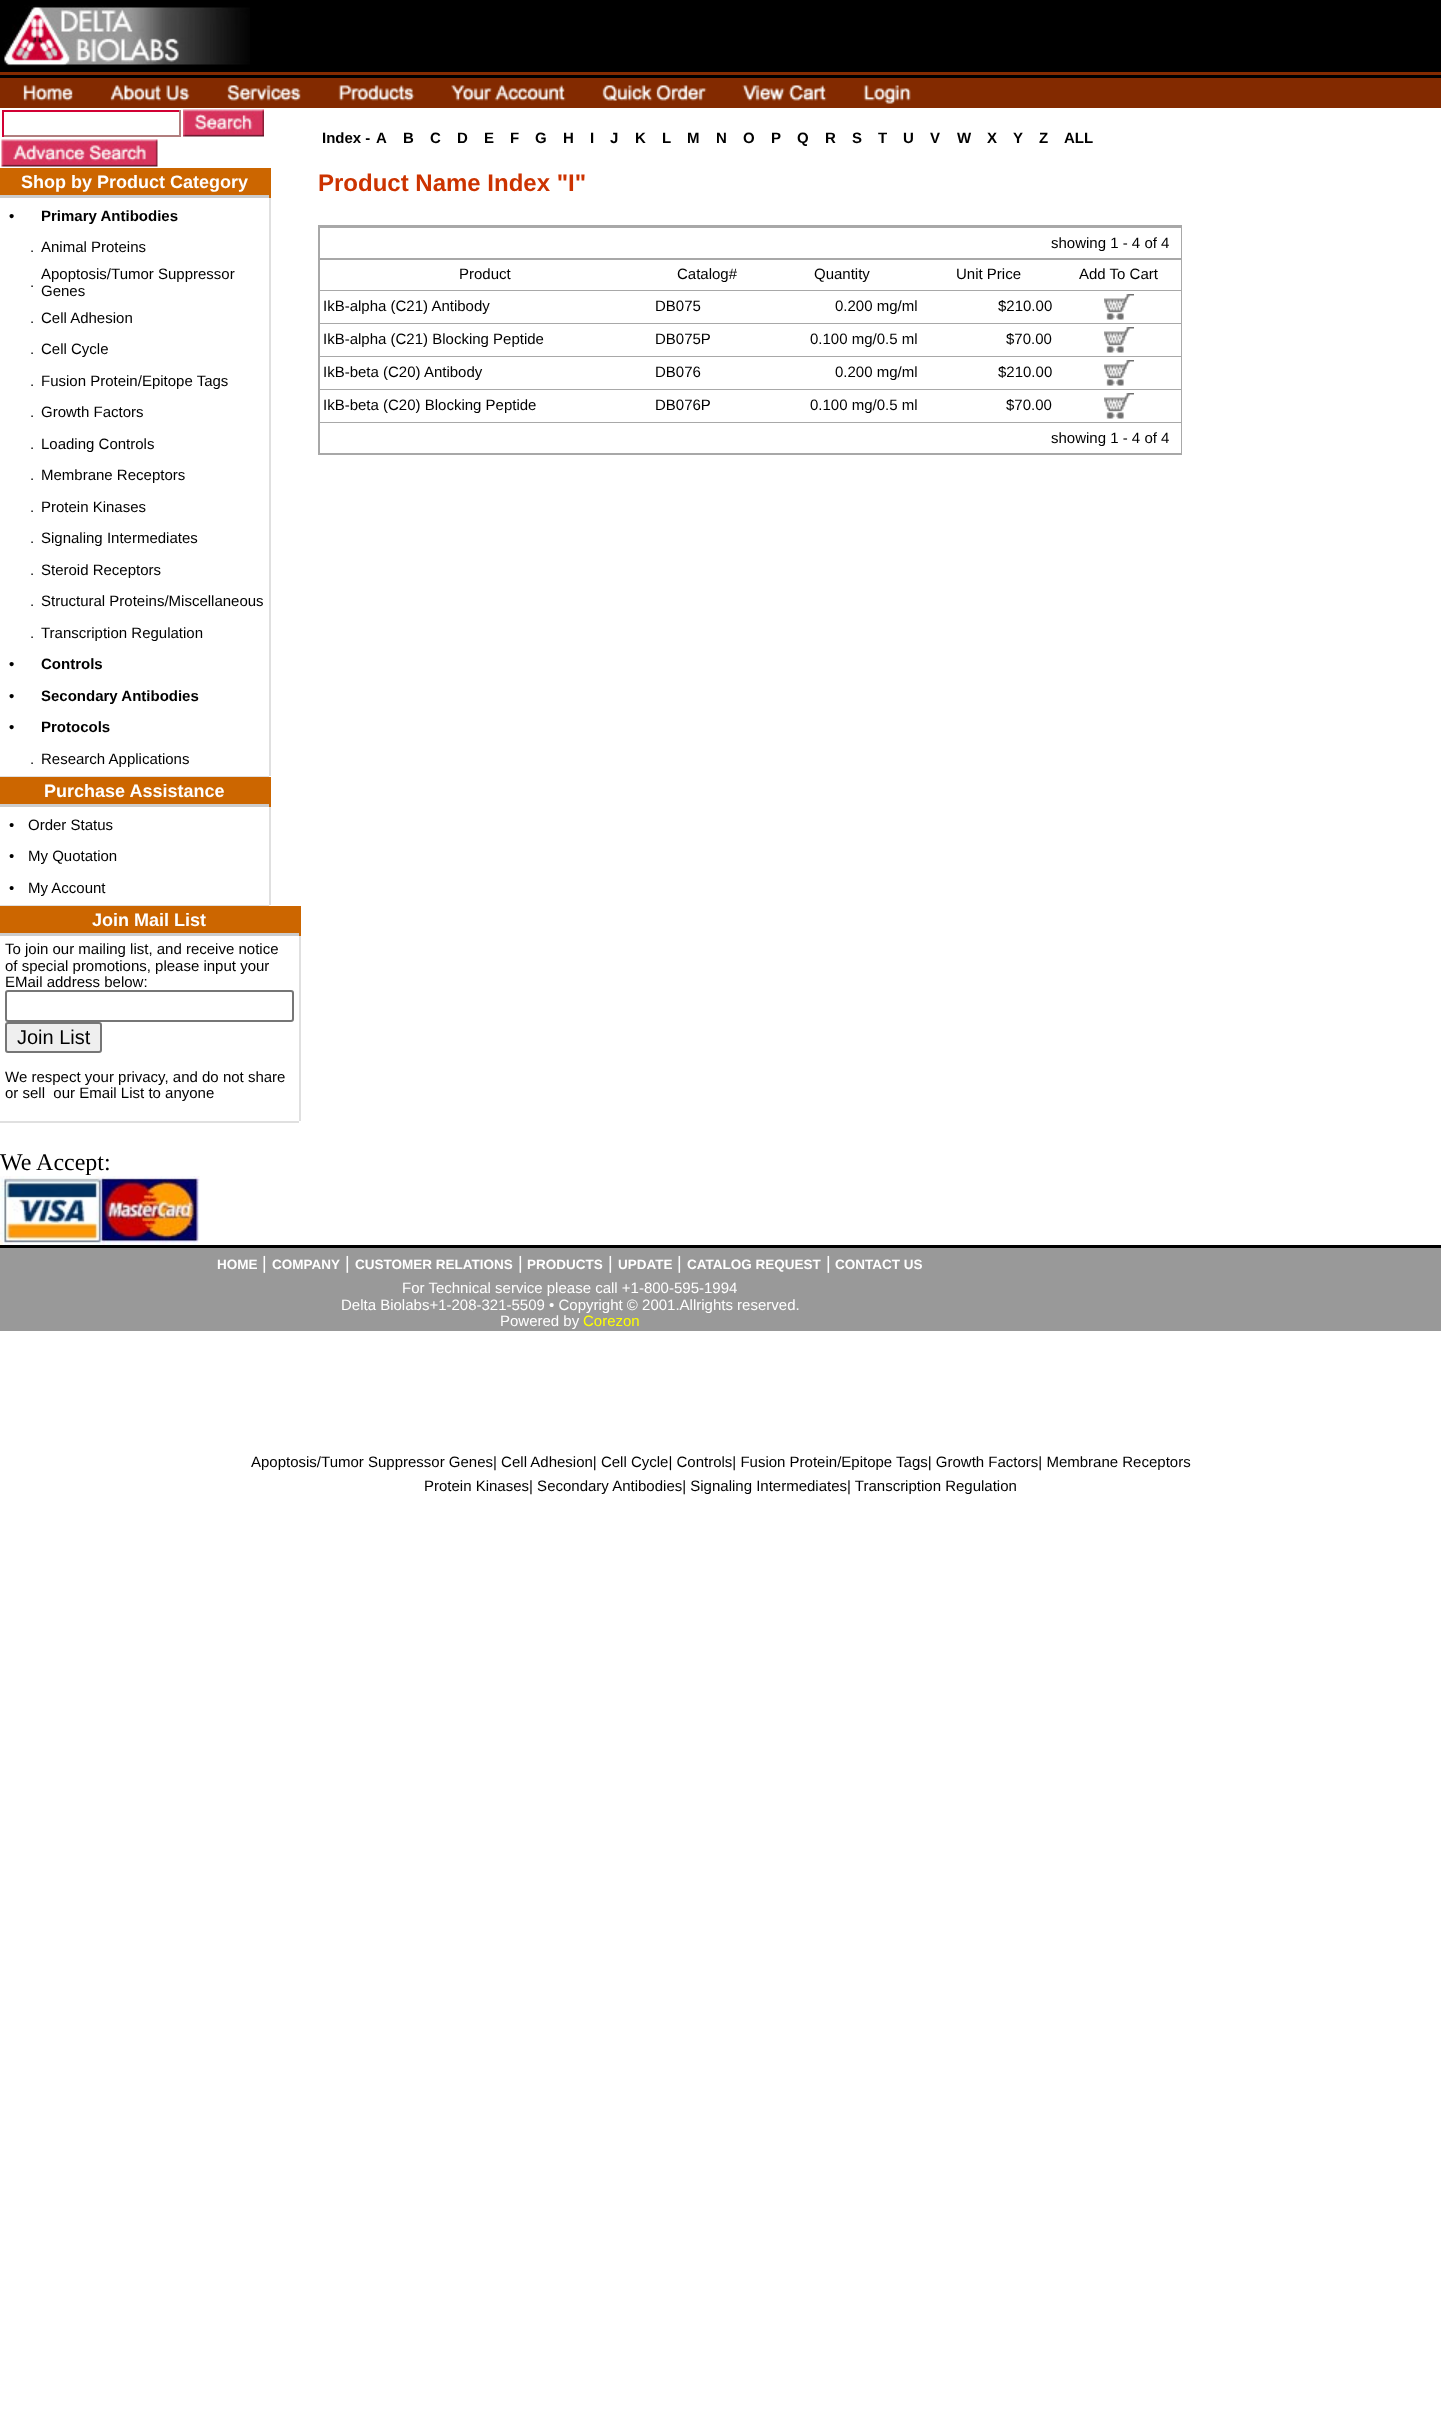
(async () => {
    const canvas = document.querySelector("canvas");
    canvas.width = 1441;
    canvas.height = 2431;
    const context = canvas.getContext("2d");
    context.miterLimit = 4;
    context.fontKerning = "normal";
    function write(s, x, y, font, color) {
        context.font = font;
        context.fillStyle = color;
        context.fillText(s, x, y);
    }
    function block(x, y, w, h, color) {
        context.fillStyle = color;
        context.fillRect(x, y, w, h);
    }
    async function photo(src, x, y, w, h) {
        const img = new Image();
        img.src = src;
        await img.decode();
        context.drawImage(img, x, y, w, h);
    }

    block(0, 0, 1441, 2431, "rgb(255, 255, 255)");
    block(0, 0, 1441, 72, "rgb(0, 0, 0)");
    await photo("media/1.png", 2, 5, 248, 61);
    block(0, 72, 1441, 3, "rgb(131, 42, 0)");
    block(0, 75, 1441, 3, "rgb(0, 0, 0)");
    block(0, 78, 1441, 30, "rgb(131, 42, 0)");
    await photo("media/2.png", 23, 85, 50, 16);
    await photo("media/3.png", 110, 85, 80, 16);
    await photo("media/4.png", 227, 85, 74, 16);
    await photo("media/5.png", 338, 85, 77, 16);
    await photo("media/6.png", 451, 85, 115, 16);
    await photo("media/7.png", 602, 85, 105, 16);
    await photo("media/8.png", 742, 85, 85, 16);
    await photo("media/9.png", 863, 85, 48, 19);
    block(2, 110, 178, 2, "rgb(210, 0, 52)");
    block(179, 110, 2, 27, "rgb(177, 126, 126)");
    block(2, 135, 178, 2, "rgb(177, 126, 126)");
    block(2, 110, 2, 27, "rgb(210, 0, 52)");
    await photo("media/10.png", 183, 109, 81, 28);
    await photo("media/11.png", 1, 139, 157, 28);
    block(0, 168, 269, 27, "rgb(204, 102, 0)");
    write("Shop by Product Category", 21, 188, "bold 18px Liberation Sans", "rgb(255, 255, 255)");
    block(269, 168, 2, 30, "rgb(204, 102, 0)");
    block(0, 195, 269, 3, "rgb(204, 204, 204)");
    write("•", 9, 221, "bold 15px Liberation Sans", "rgb(0, 0, 0)");
    write("Primary Antibodies", 41, 221, "bold 15px Liberation Sans", "rgb(0, 0, 0)");
    write(".", 30, 252, "15px Liberation Sans", "rgb(0, 0, 0)");
    write("Animal Proteins", 41, 252, "15px Liberation Sans", "rgb(0, 0, 0)");
    write(".", 30, 287, "15px Liberation Sans", "rgb(0, 0, 0)");
    write("Apoptosis/Tumor Suppressor", 41, 279, "15px Liberation Sans", "rgb(0, 0, 0)");
    write("Genes", 41, 296, "15px Liberation Sans", "rgb(0, 0, 0)");
    write(".", 30, 323, "15px Liberation Sans", "rgb(0, 0, 0)");
    write("Cell Adhesion", 41, 323, "15px Liberation Sans", "rgb(0, 0, 0)");
    write(".", 30, 354, "15px Liberation Sans", "rgb(0, 0, 0)");
    write("Cell Cycle", 41, 354, "15px Liberation Sans", "rgb(0, 0, 0)");
    write(".", 30, 386, "15px Liberation Sans", "rgb(0, 0, 0)");
    write("Fusion Protein/Epitope Tags", 41, 386, "15px Liberation Sans", "rgb(0, 0, 0)");
    write(".", 30, 417, "15px Liberation Sans", "rgb(0, 0, 0)");
    write("Growth Factors", 41, 417, "15px Liberation Sans", "rgb(0, 0, 0)");
    write(".", 30, 449, "15px Liberation Sans", "rgb(0, 0, 0)");
    write("Loading Controls", 41, 449, "15px Liberation Sans", "rgb(0, 0, 0)");
    write(".", 30, 480, "15px Liberation Sans", "rgb(0, 0, 0)");
    write("Membrane Receptors", 41, 480, "15px Liberation Sans", "rgb(0, 0, 0)");
    write(".", 30, 512, "15px Liberation Sans", "rgb(0, 0, 0)");
    write("Protein Kinases", 41, 512, "15px Liberation Sans", "rgb(0, 0, 0)");
    write(".", 30, 543, "15px Liberation Sans", "rgb(0, 0, 0)");
    write("Signaling Intermediates", 41, 543, "15px Liberation Sans", "rgb(0, 0, 0)");
    write(".", 30, 575, "15px Liberation Sans", "rgb(0, 0, 0)");
    write("Steroid Receptors", 41, 575, "15px Liberation Sans", "rgb(0, 0, 0)");
    write(".", 30, 606, "15px Liberation Sans", "rgb(0, 0, 0)");
    write("Structural Proteins/Miscellaneous", 41, 606, "15px Liberation Sans", "rgb(0, 0, 0)");
    write(".", 30, 638, "15px Liberation Sans", "rgb(0, 0, 0)");
    write("Transcription Regulation", 41, 638, "15px Liberation Sans", "rgb(0, 0, 0)");
    write("•", 9, 669, "bold 15px Liberation Sans", "rgb(0, 0, 0)");
    write("Controls", 41, 669, "bold 15px Liberation Sans", "rgb(0, 0, 0)");
    write("•", 9, 701, "bold 15px Liberation Sans", "rgb(0, 0, 0)");
    write("Secondary Antibodies", 41, 701, "bold 15px Liberation Sans", "rgb(0, 0, 0)");
    write("•", 9, 732, "bold 15px Liberation Sans", "rgb(0, 0, 0)");
    write("Protocols", 41, 732, "bold 15px Liberation Sans", "rgb(0, 0, 0)");
    write(".", 30, 764, "15px Liberation Sans", "rgb(0, 0, 0)");
    write("Research Applications", 41, 764, "15px Liberation Sans", "rgb(0, 0, 0)");
    block(269, 198, 2, 578, "rgb(224, 224, 224)");
    block(0, 776, 269, 1, "rgb(224, 224, 224)");
    block(0, 777, 269, 27, "rgb(204, 102, 0)");
    write("Purchase Assistance", 44, 797, "bold 18px Liberation Sans", "rgb(255, 255, 255)");
    block(269, 777, 2, 30, "rgb(204, 102, 0)");
    block(0, 804, 269, 3, "rgb(204, 204, 204)");
    write("•", 9, 830, "15px Liberation Sans", "rgb(0, 0, 0)");
    write("Order Status", 28, 830, "15px Liberation Sans", "rgb(0, 0, 0)");
    write("•", 9, 861, "15px Liberation Sans", "rgb(0, 0, 0)");
    write("My Quotation", 28, 861, "15px Liberation Sans", "rgb(0, 0, 0)");
    write("•", 9, 893, "15px Liberation Sans", "rgb(0, 0, 0)");
    write("My Account", 28, 893, "15px Liberation Sans", "rgb(0, 0, 0)");
    block(269, 807, 2, 98, "rgb(224, 224, 224)");
    block(0, 905, 269, 1, "rgb(224, 224, 224)");
    block(0, 906, 299, 27, "rgb(204, 102, 0)");
    write("Join Mail List", 92, 926, "bold 18px Liberation Sans", "rgb(255, 255, 255)");
    block(299, 906, 2, 30, "rgb(204, 102, 0)");
    block(0, 933, 299, 3, "rgb(204, 204, 204)");
    write("To join our mailing list, and receive notice", 5, 954, "15px Liberation Sans", "rgb(0, 0, 0)");
    write("of special promotions, please input your", 5, 971, "15px Liberation Sans", "rgb(0, 0, 0)");
    write("EMail address below:", 5, 987, "15px Liberation Sans", "rgb(0, 0, 0)");
    context.beginPath();
    context.roundRect(6, 991, 287, 30, 2);
    context.strokeStyle = "rgb(118, 118, 118)";
    context.lineWidth = 2;
    context.stroke();
    context.fillStyle = "rgb(239, 239, 239)";
    context.beginPath();
    context.roundRect(6, 1023, 95, 29, 2);
    context.fill();
    context.stroke();
    write("Join List", 17, 1044, "20px Liberation Sans", "rgb(0, 0, 0)");
    write("We respect your privacy, and do not share", 5, 1082, "15px Liberation Sans", "rgb(0, 0, 0)");
    write("or sell  our Email List to anyone", 5, 1098, "15px Liberation Sans", "rgb(0, 0, 0)");
    block(299, 936, 2, 185, "rgb(224, 224, 224)");
    block(0, 1121, 299, 2, "rgb(224, 224, 224)");
    write("We Accept:", 0, 1170, "24px Liberation Serif", "rgb(0, 0, 0)");
    await photo("media/12.png", 0, 1176, 200, 69);
    write("Index -", 322, 143, "bold 15px Liberation Sans", "rgb(0, 0, 0)");
    write("A", 376, 143, "bold 15px Liberation Sans", "rgb(0, 0, 0)");
    write("B", 403, 143, "bold 15px Liberation Sans", "rgb(0, 0, 0)");
    write("C", 430, 143, "bold 15px Liberation Sans", "rgb(0, 0, 0)");
    write("D", 457, 143, "bold 15px Liberation Sans", "rgb(0, 0, 0)");
    write("E", 484, 143, "bold 15px Liberation Sans", "rgb(0, 0, 0)");
    write("F", 510, 143, "bold 15px Liberation Sans", "rgb(0, 0, 0)");
    write("G", 535, 143, "bold 15px Liberation Sans", "rgb(0, 0, 0)");
    write("H", 563, 143, "bold 15px Liberation Sans", "rgb(0, 0, 0)");
    write("I", 590, 143, "bold 15px Liberation Sans", "rgb(0, 0, 0)");
    write("J", 610, 143, "bold 15px Liberation Sans", "rgb(0, 0, 0)");
    write("K", 635, 143, "bold 15px Liberation Sans", "rgb(0, 0, 0)");
    write("L", 662, 143, "bold 15px Liberation Sans", "rgb(0, 0, 0)");
    write("M", 687, 143, "bold 15px Liberation Sans", "rgb(0, 0, 0)");
    write("N", 716, 143, "bold 15px Liberation Sans", "rgb(0, 0, 0)");
    write("O", 743, 143, "bold 15px Liberation Sans", "rgb(0, 0, 0)");
    write("P", 771, 143, "bold 15px Liberation Sans", "rgb(0, 0, 0)");
    write("Q", 797, 143, "bold 15px Liberation Sans", "rgb(0, 0, 0)");
    write("R", 825, 143, "bold 15px Liberation Sans", "rgb(0, 0, 0)");
    write("S", 852, 143, "bold 15px Liberation Sans", "rgb(0, 0, 0)");
    write("T", 878, 143, "bold 15px Liberation Sans", "rgb(0, 0, 0)");
    write("U", 903, 143, "bold 15px Liberation Sans", "rgb(0, 0, 0)");
    write("V", 930, 143, "bold 15px Liberation Sans", "rgb(0, 0, 0)");
    write("W", 957, 143, "bold 15px Liberation Sans", "rgb(0, 0, 0)");
    write("X", 987, 143, "bold 15px Liberation Sans", "rgb(0, 0, 0)");
    write("Y", 1013, 143, "bold 15px Liberation Sans", "rgb(0, 0, 0)");
    write("Z", 1039, 143, "bold 15px Liberation Sans", "rgb(0, 0, 0)");
    write("ALL", 1064, 143, "bold 15px Liberation Sans", "rgb(0, 0, 0)");
    write("Product Name Index \"I\"", 318, 191, "bold 24px Liberation Sans", "rgb(204, 51, 0)");
    block(318, 225, 864, 230, "rgb(168, 168, 168)");
    block(320, 228, 861, 30, "rgb(255, 255, 255)");
    write("showing 1 - 4 of 4", 1051, 248, "15px Liberation Sans", "rgb(0, 0, 0)");
    block(320, 260, 861, 30, "rgb(255, 255, 255)");
    write("Product", 459, 279, "15px Liberation Sans", "rgb(0, 0, 0)");
    write("Catalog#", 677, 279, "15px Liberation Sans", "rgb(0, 0, 0)");
    write("Quantity", 814, 279, "15px Liberation Sans", "rgb(0, 0, 0)");
    write("Unit Price", 956, 279, "15px Liberation Sans", "rgb(0, 0, 0)");
    write("Add To Cart", 1079, 279, "15px Liberation Sans", "rgb(0, 0, 0)");
    block(320, 291, 861, 32, "rgb(255, 255, 255)");
    write("IkB-alpha (C21) Antibody", 323, 311, "15px Liberation Sans", "rgb(0, 0, 0)");
    write("DB075", 655, 311, "15px Liberation Sans", "rgb(0, 0, 0)");
    write("0.200 mg/ml", 835, 311, "15px Liberation Sans", "rgb(0, 0, 0)");
    write("$210.00", 998, 311, "15px Liberation Sans", "rgb(0, 0, 0)");
    await photo("media/13.png", 1104, 294, 30, 26);
    block(320, 324, 861, 32, "rgb(255, 255, 255)");
    write("IkB-alpha (C21) Blocking Peptide", 323, 344, "15px Liberation Sans", "rgb(0, 0, 0)");
    write("DB075P", 655, 344, "15px Liberation Sans", "rgb(0, 0, 0)");
    write("0.100 mg/0.5 ml", 810, 344, "15px Liberation Sans", "rgb(0, 0, 0)");
    write("$70.00", 1006, 344, "15px Liberation Sans", "rgb(0, 0, 0)");
    await photo("media/13.png", 1104, 327, 30, 26);
    block(320, 357, 861, 32, "rgb(255, 255, 255)");
    write("IkB-beta (C20) Antibody", 323, 377, "15px Liberation Sans", "rgb(0, 0, 0)");
    write("DB076", 655, 377, "15px Liberation Sans", "rgb(0, 0, 0)");
    write("0.200 mg/ml", 835, 377, "15px Liberation Sans", "rgb(0, 0, 0)");
    write("$210.00", 998, 377, "15px Liberation Sans", "rgb(0, 0, 0)");
    await photo("media/13.png", 1104, 360, 30, 26);
    block(320, 390, 861, 32, "rgb(255, 255, 255)");
    write("IkB-beta (C20) Blocking Peptide", 323, 410, "15px Liberation Sans", "rgb(0, 0, 0)");
    write("DB076P", 655, 410, "15px Liberation Sans", "rgb(0, 0, 0)");
    write("0.100 mg/0.5 ml", 810, 410, "15px Liberation Sans", "rgb(0, 0, 0)");
    write("$70.00", 1006, 410, "15px Liberation Sans", "rgb(0, 0, 0)");
    await photo("media/13.png", 1104, 393, 30, 26);
    block(320, 423, 861, 30, "rgb(255, 255, 255)");
    write("showing 1 - 4 of 4", 1051, 443, "15px Liberation Sans", "rgb(0, 0, 0)");
    block(0, 1245, 1441, 3, "rgb(0, 0, 0)");
    block(0, 1248, 1441, 83, "rgb(153, 153, 153)");
    write("HOME", 217, 1269, "bold 13.5px Liberation Sans", "rgb(255, 255, 255)");
    write("|", 262, 1269, "18px Liberation Sans", "rgb(255, 255, 255)");
    write("COMPANY", 272, 1269, "bold 13.5px Liberation Sans", "rgb(255, 255, 255)");
    write("|", 345, 1269, "18px Liberation Sans", "rgb(255, 255, 255)");
    write("CUSTOMER RELATIONS", 355, 1269, "bold 13.5px Liberation Sans", "rgb(255, 255, 255)");
    write("|", 518, 1269, "18px Liberation Sans", "rgb(255, 255, 255)");
    write("PRODUCTS", 527, 1269, "bold 13.5px Liberation Sans", "rgb(255, 255, 255)");
    write("|", 608, 1269, "18px Liberation Sans", "rgb(255, 255, 255)");
    write("UPDATE", 618, 1269, "bold 13.5px Liberation Sans", "rgb(255, 255, 255)");
    write("|", 677, 1269, "18px Liberation Sans", "rgb(255, 255, 255)");
    write("CATALOG REQUEST", 687, 1269, "bold 13.5px Liberation Sans", "rgb(255, 255, 255)");
    write("|", 826, 1269, "18px Liberation Sans", "rgb(255, 255, 255)");
    write("CONTACT US", 835, 1269, "bold 13.5px Liberation Sans", "rgb(255, 255, 255)");
    write("For Technical service please call +1-800-595-1994", 402, 1293, "15px Liberation Sans", "rgb(255, 255, 255)");
    write("Delta Biolabs+1-208-321-5509 • Copyright © 2001.Allrights reserved.", 341, 1310, "15px Liberation Sans", "rgb(255, 255, 255)");
    write("Powered by", 500, 1326, "15px Liberation Sans", "rgb(255, 255, 255)");
    write("Corezon", 583, 1326, "15px Liberation Sans", "rgb(255, 255, 0)");
    write("Apoptosis/Tumor Suppressor Genes| Cell Adhesion| Cell Cycle| Controls| Fusion Protein/Epitope Tags| Growth Factors| Membrane Receptors", 251, 1467, "15px Liberation Sans", "rgb(0, 0, 0)");
    write("Protein Kinases| Secondary Antibodies| Signaling Intermediates| Transcription Regulation", 424, 1491, "15px Liberation Sans", "rgb(0, 0, 0)");
})();
